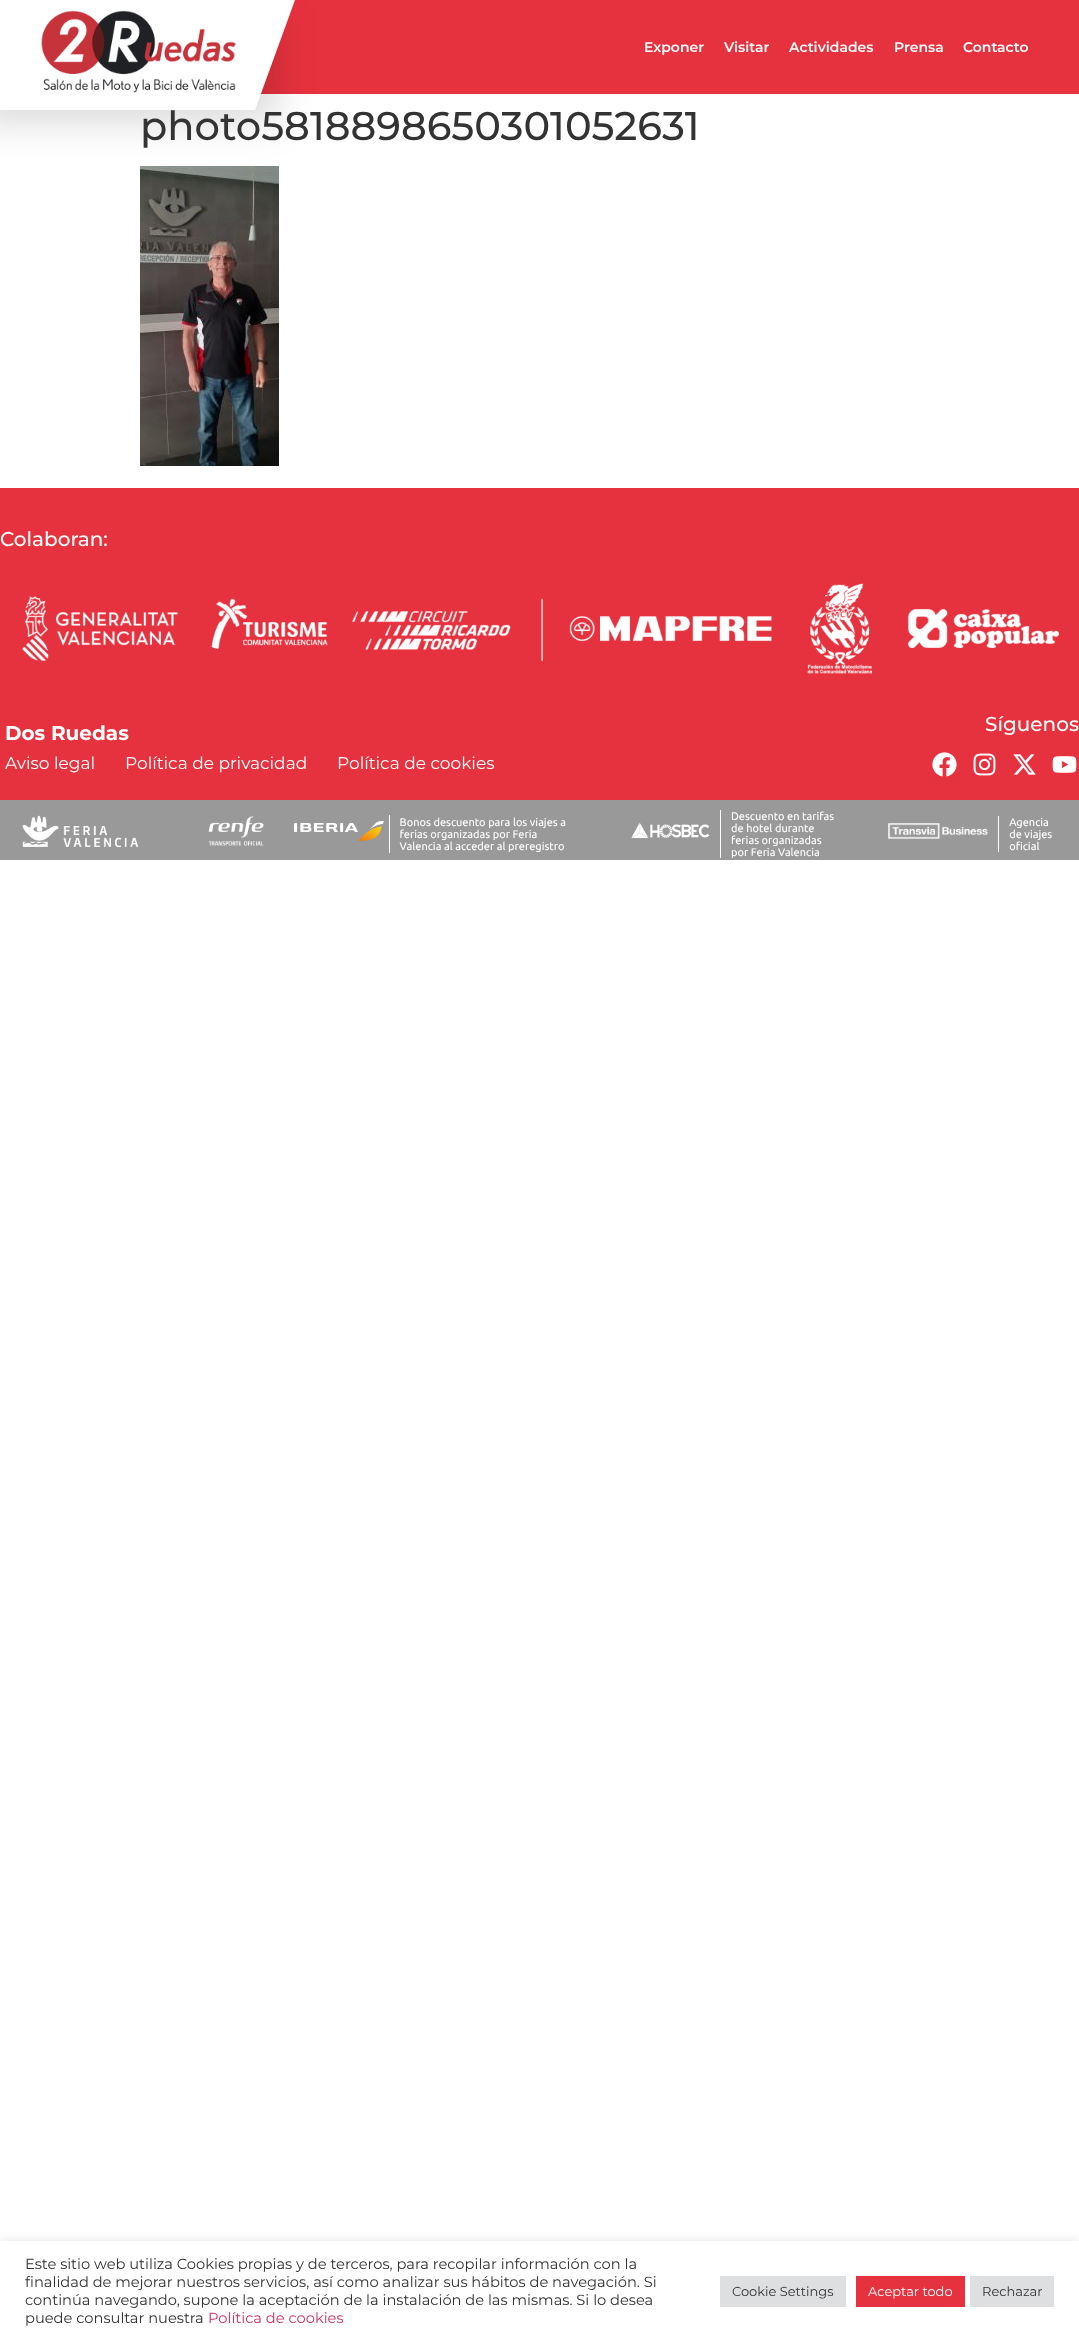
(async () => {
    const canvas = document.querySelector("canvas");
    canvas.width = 1079;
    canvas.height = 2341;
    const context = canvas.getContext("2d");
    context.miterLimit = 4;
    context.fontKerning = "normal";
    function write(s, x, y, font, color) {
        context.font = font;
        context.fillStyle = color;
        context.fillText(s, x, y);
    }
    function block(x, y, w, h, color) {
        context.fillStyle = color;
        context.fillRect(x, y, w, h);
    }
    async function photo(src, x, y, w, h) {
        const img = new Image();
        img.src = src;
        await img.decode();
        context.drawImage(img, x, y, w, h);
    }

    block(0, 0, 1079, 2341, "rgb(255, 255, 255)");
    block(260, 0, 819, 94, "rgb(230, 50, 62)");
    await photo("media/2.png", 140, 166, 139, 300);
    context.fillStyle = "rgba(0, 0, 0, 0.16)";
    context.filter = "blur(20px)";
    context.beginPath();
    context.rect(-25, 10, 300, 110);
    context.fill();
    context.filter = "none";
    context.fillStyle = "rgb(255, 255, 255)";
    context.beginPath();
    context.moveTo(-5, 0);
    context.lineTo(295, 0);
    context.lineTo(255, 110);
    context.lineTo(-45, 110);
    context.closePath();
    context.fill();
    await photo("media/1.png", 41, 10, 195, 83);
    write("Exponer", 644, 52, "600 14px Montserrat", "rgb(255, 255, 255)");
    write("Visitar", 724, 52, "600 14px Montserrat", "rgb(255, 255, 255)");
    write("Actividades", 789, 52, "600 14px Montserrat", "rgb(255, 255, 255)");
    write("Prensa", 894, 52, "600 14px Montserrat", "rgb(255, 255, 255)");
    write("Contacto", 963, 52, "600 14px Montserrat", "rgb(255, 255, 255)");
    write("photo5818898650301052631", 140, 140, "500 40px Montserrat", "rgb(51, 51, 51)");
    block(0, 488, 1079, 312, "rgb(230, 50, 62)");
    write("Colaboran:", 0, 546, "500 20px Montserrat", "rgb(255, 255, 255)");
    await photo("media/3.png", 22, 583, 1037, 91);
    write("Dos Ruedas", 5, 740, "bold 20px Montserrat", "rgb(255, 255, 255)");
    write("Aviso legal", 5, 769, "17px Montserrat", "rgb(255, 255, 255)");
    write("Política de privacidad", 125, 769, "17px Montserrat", "rgb(255, 255, 255)");
    write("Política de cookies", 337, 769, "17px Montserrat", "rgb(255, 255, 255)");
    write("Síguenos", 985, 731, "500 20px Montserrat", "rgb(255, 255, 255)");
    await photo("media/4.png", 932, 752, 25, 25);
    await photo("media/5.png", 973, 753, 23, 23);
    await photo("media/6.png", 1013, 754, 23, 21);
    await photo("media/7.png", 1052, 756, 25, 17);
    await photo("media/8.png", 0, 800, 1079, 60);
    context.fillStyle = "rgba(172, 171, 171, 0.3)";
    context.filter = "blur(5px)";
    context.beginPath();
    context.rect(0, 2240, 1079, 100);
    context.fill();
    context.filter = "none";
    block(0, 2241, 1079, 100, "rgb(255, 255, 255)");
    write("Este sitio web utiliza Cookies propias y de terceros, para recopilar información con la", 25, 2269, "14.65px Montserrat", "rgb(51, 51, 51)");
    write("finalidad de mejorar nuestros servicios, así como analizar sus hábitos de navegación. Si", 25, 2287, "14.65px Montserrat", "rgb(51, 51, 51)");
    write("continúa navegando, supone la aceptación de la instalación de las mismas. Si lo desea", 25, 2305, "14.65px Montserrat", "rgb(51, 51, 51)");
    write("puede consultar nuestra", 25, 2323, "14.65px Montserrat", "rgb(51, 51, 51)");
    write("Política de cookies", 208, 2323, "14.65px Montserrat", "rgb(204, 51, 102)");
    block(720, 2276, 126, 31, "rgb(222, 223, 224)");
    write("Cookie Settings", 732, 2296, "13px Montserrat", "rgb(51, 51, 51)");
    block(856, 2276, 109, 31, "rgb(230, 50, 62)");
    write("Aceptar todo", 868, 2296, "13px Montserrat", "rgb(255, 255, 255)");
    block(970, 2276, 84, 31, "rgb(222, 223, 224)");
    write("Rechazar", 982, 2296, "13px Montserrat", "rgb(51, 51, 51)");
})();
